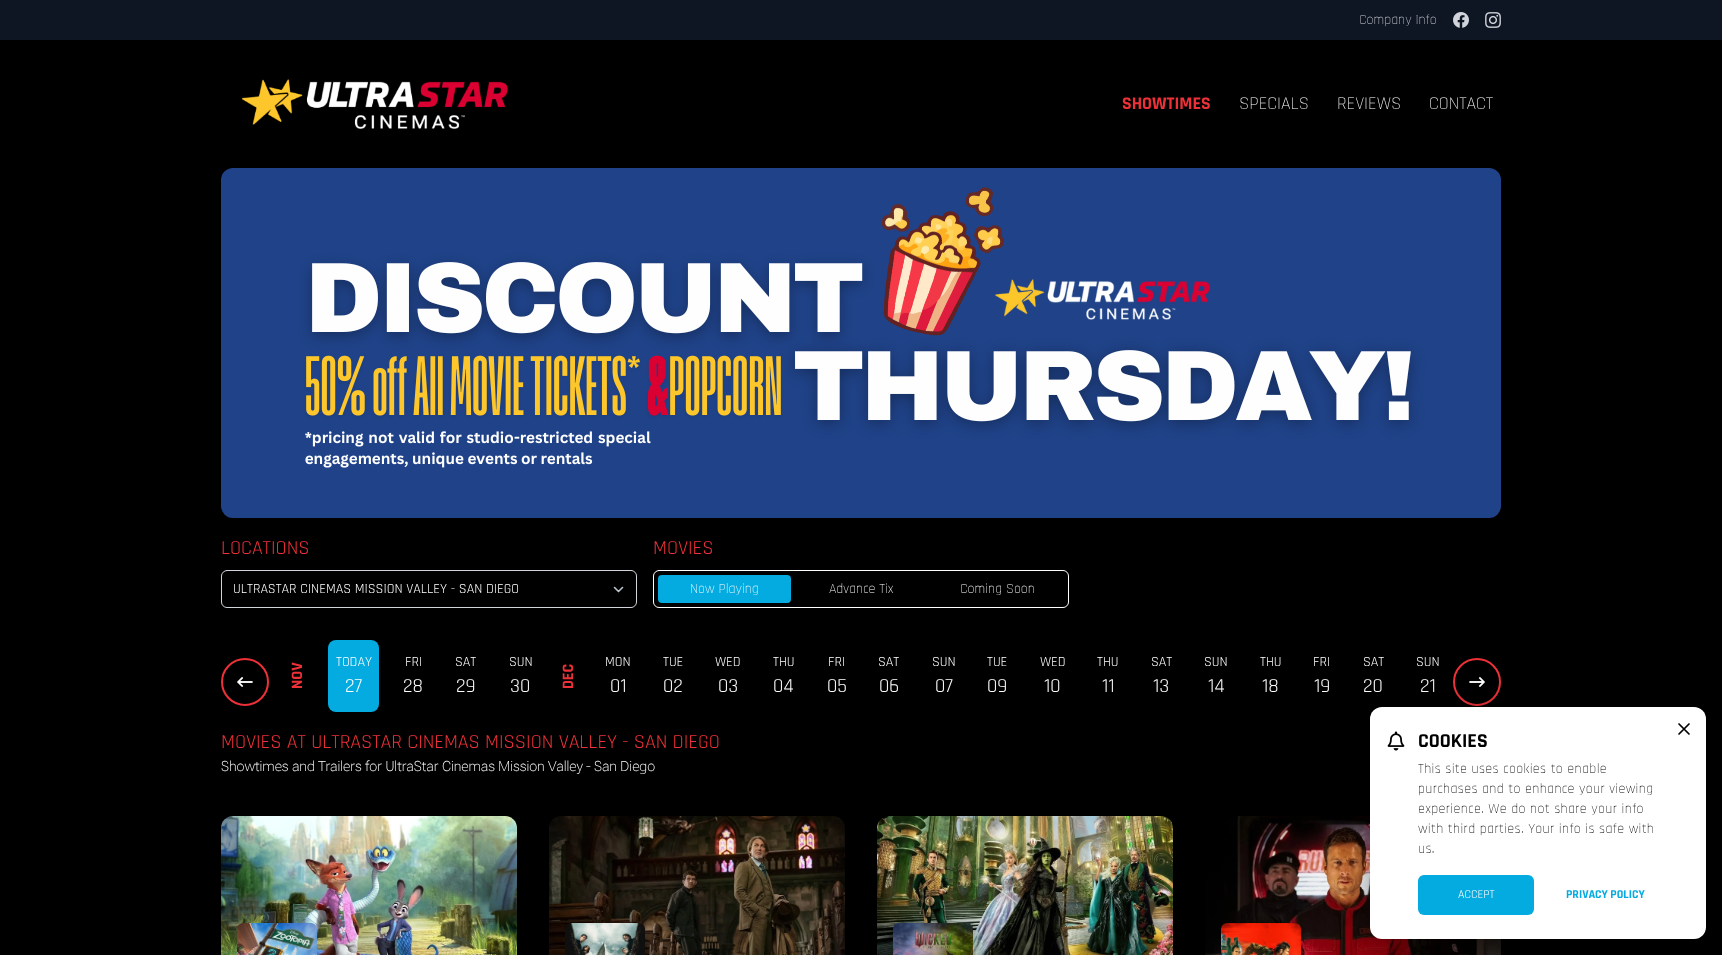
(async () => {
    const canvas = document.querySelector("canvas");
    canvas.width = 1722;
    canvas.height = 955;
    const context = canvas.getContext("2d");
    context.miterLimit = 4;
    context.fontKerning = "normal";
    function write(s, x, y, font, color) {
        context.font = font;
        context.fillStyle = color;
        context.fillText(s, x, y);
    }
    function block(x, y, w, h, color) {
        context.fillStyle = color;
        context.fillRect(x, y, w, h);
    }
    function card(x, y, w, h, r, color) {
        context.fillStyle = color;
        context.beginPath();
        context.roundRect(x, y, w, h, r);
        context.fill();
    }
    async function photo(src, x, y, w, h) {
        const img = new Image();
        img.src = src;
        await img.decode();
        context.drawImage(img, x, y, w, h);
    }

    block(0, 0, 1722, 955, "rgb(0, 0, 0)");
    block(0, 0, 1722, 40, "rgb(15, 22, 35)");
    write("Company Info", 1359, 24, "300 14px Rajdhani", "rgb(209, 213, 219)");
    await photo("media/1.png", 1453, 12, 16, 16);
    await photo("media/2.png", 1485, 12, 16, 16);
    await photo("media/3.png", 242, 79, 266, 50);
    write("SHOWTIMES", 1122, 109, "bold 18px Rajdhani", "rgb(238, 49, 56)");
    write("SPECIALS", 1239, 109, "300 18px Rajdhani", "rgb(255, 255, 255)");
    write("REVIEWS", 1337, 109, "300 18px Rajdhani", "rgb(255, 255, 255)");
    write("CONTACT", 1429, 109, "300 18px Rajdhani", "rgb(255, 255, 255)");
    await photo("media/4.png", 221, 168, 1280, 350);
    write("LOCATIONS", 221, 554, "20px Rajdhani", "rgb(238, 49, 56)");
    context.beginPath();
    context.moveTo(614.5, 587.5);
    context.lineTo(618.5, 591.5);
    context.lineTo(622.5, 587.5);
    context.strokeStyle = "rgb(189, 198, 206)";
    context.lineWidth = 1.6;
    context.lineCap = "round";
    context.lineJoin = "round";
    context.stroke();
    context.beginPath();
    context.roundRect(221.5, 570.5, 415, 37, 5.5);
    context.strokeStyle = "rgb(209, 213, 219)";
    context.lineWidth = 1;
    context.lineJoin = "miter";
    context.stroke();
    write("ULTRASTAR CINEMAS MISSION VALLEY - SAN DIEGO", 233, 593, "14px Rajdhani", "rgb(255, 255, 255)");
    write("MOVIES", 653, 554, "20px Rajdhani", "rgb(238, 49, 56)");
    context.beginPath();
    context.roundRect(653.5, 570.5, 415, 37, 5.5);
    context.strokeStyle = "rgb(255, 255, 255)";
    context.stroke();
    card(658, 575, 133, 28, 4, "rgb(3, 171, 224)");
    write("Now Playing", 690, 593, "300 14px Rajdhani", "rgb(255, 255, 255)");
    write("Advance Tix", 829, 593, "300 14px Rajdhani", "rgb(255, 255, 255)");
    write("Coming Soon", 960, 593, "300 14px Rajdhani", "rgb(255, 255, 255)");
    context.beginPath();
    context.arc(245, 682, 23, 0, Math.PI * 2);
    context.strokeStyle = "rgb(238, 49, 56)";
    context.lineWidth = 2;
    context.stroke();
    await photo("media/5.png", 237, 677, 16, 10);
    context.font = "bold 16px Rajdhani";
    context.fillStyle = "rgb(238, 49, 56)";
    context.save();
    context.translate(302, 689);
    context.rotate(-90 * Math.PI / 180);
    context.fillText("NOV", 0, 0);
    context.restore();
    card(328, 640, 51, 72, 8, "rgb(3, 171, 224)");
    write("TODAY", 336, 666, "14px Rajdhani", "rgb(255, 255, 255)");
    write("27", 345, 692, "20px Rajdhani", "rgb(255, 255, 255)");
    write("FRI", 405, 666, "14px Rajdhani", "rgb(255, 255, 255)");
    write("28", 403, 692, "20px Rajdhani", "rgb(255, 255, 255)");
    write("SAT", 455, 666, "14px Rajdhani", "rgb(255, 255, 255)");
    write("29", 456, 692, "20px Rajdhani", "rgb(255, 255, 255)");
    write("SUN", 509, 666, "14px Rajdhani", "rgb(255, 255, 255)");
    write("30", 510, 692, "20px Rajdhani", "rgb(255, 255, 255)");
    context.font = "bold 16px Rajdhani";
    context.fillStyle = "rgb(238, 49, 56)";
    context.save();
    context.translate(573, 689);
    context.rotate(-90 * Math.PI / 180);
    context.fillText("DEC", 0, 0);
    context.restore();
    write("MON", 605, 666, "14px Rajdhani", "rgb(255, 255, 255)");
    write("01", 610, 692, "20px Rajdhani", "rgb(255, 255, 255)");
    write("TUE", 663, 666, "14px Rajdhani", "rgb(255, 255, 255)");
    write("02", 663, 692, "20px Rajdhani", "rgb(255, 255, 255)");
    write("WED", 715, 666, "14px Rajdhani", "rgb(255, 255, 255)");
    write("03", 718, 692, "20px Rajdhani", "rgb(255, 255, 255)");
    write("THU", 773, 666, "14px Rajdhani", "rgb(255, 255, 255)");
    write("04", 773, 692, "20px Rajdhani", "rgb(255, 255, 255)");
    write("FRI", 828, 666, "14px Rajdhani", "rgb(255, 255, 255)");
    write("05", 827, 692, "20px Rajdhani", "rgb(255, 255, 255)");
    write("SAT", 878, 666, "14px Rajdhani", "rgb(255, 255, 255)");
    write("06", 879, 692, "20px Rajdhani", "rgb(255, 255, 255)");
    write("SUN", 932, 666, "14px Rajdhani", "rgb(255, 255, 255)");
    write("07", 935, 692, "20px Rajdhani", "rgb(255, 255, 255)");
    write("TUE", 987, 666, "14px Rajdhani", "rgb(255, 255, 255)");
    write("09", 987, 692, "20px Rajdhani", "rgb(255, 255, 255)");
    write("WED", 1040, 666, "14px Rajdhani", "rgb(255, 255, 255)");
    write("10", 1044, 692, "20px Rajdhani", "rgb(255, 255, 255)");
    write("THU", 1097, 666, "14px Rajdhani", "rgb(255, 255, 255)");
    write("11", 1102, 692, "20px Rajdhani", "rgb(255, 255, 255)");
    write("SAT", 1151, 666, "14px Rajdhani", "rgb(255, 255, 255)");
    write("13", 1153, 692, "20px Rajdhani", "rgb(255, 255, 255)");
    write("SUN", 1204, 666, "14px Rajdhani", "rgb(255, 255, 255)");
    write("14", 1208, 692, "20px Rajdhani", "rgb(255, 255, 255)");
    write("THU", 1260, 666, "14px Rajdhani", "rgb(255, 255, 255)");
    write("18", 1262, 692, "20px Rajdhani", "rgb(255, 255, 255)");
    write("FRI", 1313, 666, "14px Rajdhani", "rgb(255, 255, 255)");
    write("19", 1314, 692, "20px Rajdhani", "rgb(255, 255, 255)");
    write("SAT", 1363, 666, "14px Rajdhani", "rgb(255, 255, 255)");
    write("20", 1363, 692, "20px Rajdhani", "rgb(255, 255, 255)");
    write("SUN", 1416, 666, "14px Rajdhani", "rgb(255, 255, 255)");
    write("21", 1420, 692, "20px Rajdhani", "rgb(255, 255, 255)");
    context.beginPath();
    context.arc(1477, 682, 23, 0, Math.PI * 2);
    context.stroke();
    await photo("media/6.png", 1469, 677, 16, 10);
    write("MOVIES AT ULTRASTAR CINEMAS MISSION VALLEY - SAN DIEGO", 221, 748, "20px Rajdhani", "rgb(238, 49, 56)");
    write("Showtimes and Trailers for UltraStar Cinemas Mission Valley - San Diego", 221, 771, "100 14px Roboto Flex", "rgb(255, 255, 255)");
    await photo("media/7.png", 221, 816, 296, 139);
    context.fillStyle = "rgba(0, 0, 0, 0.1)";
    context.filter = "blur(3px)";
    context.beginPath();
    context.roundRect(238, 928, 78, 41, 5);
    context.fill();
    context.filter = "none";
    await photo("media/8.png", 237, 923, 80, 32);
    await photo("media/9.png", 549, 816, 296, 139);
    context.filter = "blur(3px)";
    context.beginPath();
    context.roundRect(566, 928, 78, 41, 5);
    context.fill();
    context.filter = "none";
    await photo("media/10.png", 565, 923, 80, 32);
    await photo("media/11.png", 877, 816, 296, 139);
    context.filter = "blur(3px)";
    context.beginPath();
    context.roundRect(894, 928, 78, 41, 5);
    context.fill();
    context.filter = "none";
    await photo("media/12.png", 893, 923, 80, 32);
    await photo("media/13.png", 1205, 816, 296, 139);
    context.filter = "blur(3px)";
    context.beginPath();
    context.roundRect(1222, 928, 78, 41, 5);
    context.fill();
    context.filter = "none";
    await photo("media/14.png", 1221, 923, 80, 32);
    context.fillStyle = "rgba(0, 0, 0, 0.3)";
    context.filter = "blur(15px)";
    context.beginPath();
    context.roundRect(1367, 711, 336, 232, 12);
    context.fill();
    context.filter = "none";
    card(1370, 707, 336, 232, 12, "rgb(255, 255, 255)");
    context.beginPath();
    context.moveTo(1679, 734);
    context.lineTo(1689, 724);
    context.moveTo(1679, 724);
    context.lineTo(1689, 734);
    context.strokeStyle = "rgb(0, 0, 0)";
    context.lineWidth = 1.7;
    context.lineJoin = "round";
    context.stroke();
    await photo("media/15.png", 1387, 731, 18, 20);
    write("COOKIES", 1418, 747, "bold 20px Rajdhani", "rgb(0, 0, 0)");
    context.letterSpacing = "0.35px";
    write("This site uses cookies to enable", 1418, 773, "300 14px Rajdhani", "rgb(0, 0, 0)");
    write("purchases and to enhance your viewing", 1418, 793, "300 14px Rajdhani", "rgb(0, 0, 0)");
    write("experience. We do not share your info", 1418, 813, "300 14px Rajdhani", "rgb(0, 0, 0)");
    write("with third parties. Your info is safe with", 1418, 833, "300 14px Rajdhani", "rgb(0, 0, 0)");
    write("us.", 1418, 853, "300 14px Rajdhani", "rgb(0, 0, 0)");
    card(1418, 875, 116, 40, 6, "rgb(3, 171, 224)");
    context.letterSpacing = "0px";
    write("ACCEPT", 1458, 898, "12px Rajdhani", "rgb(255, 255, 255)");
    write("PRIVACY POLICY", 1566, 898, "bold 12px Rajdhani", "rgb(3, 171, 224)");
})();
